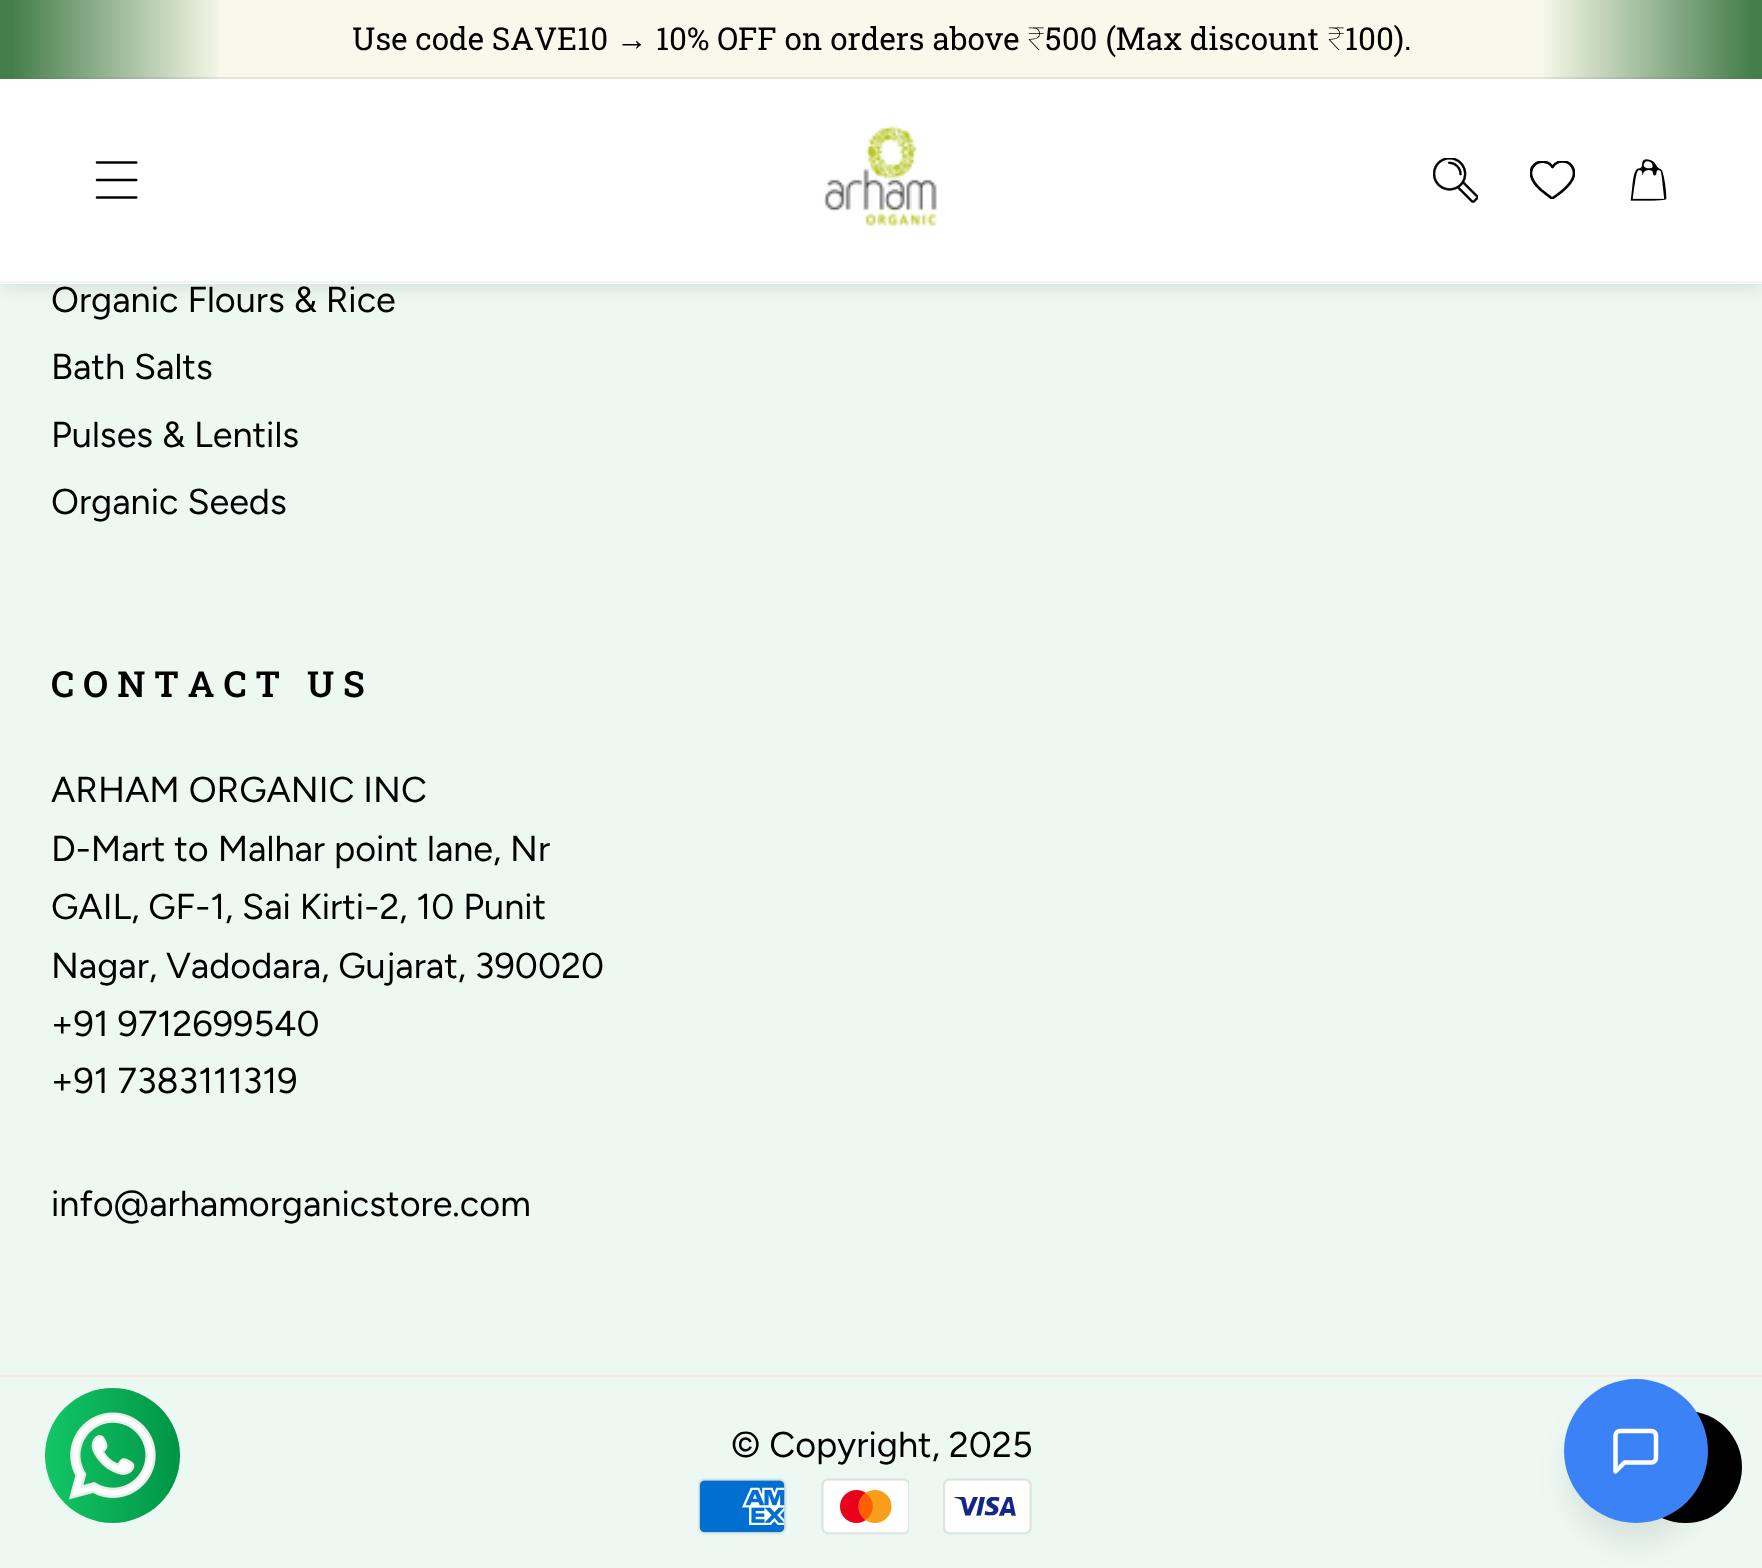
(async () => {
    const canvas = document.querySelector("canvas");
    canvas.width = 1762;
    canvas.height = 1568;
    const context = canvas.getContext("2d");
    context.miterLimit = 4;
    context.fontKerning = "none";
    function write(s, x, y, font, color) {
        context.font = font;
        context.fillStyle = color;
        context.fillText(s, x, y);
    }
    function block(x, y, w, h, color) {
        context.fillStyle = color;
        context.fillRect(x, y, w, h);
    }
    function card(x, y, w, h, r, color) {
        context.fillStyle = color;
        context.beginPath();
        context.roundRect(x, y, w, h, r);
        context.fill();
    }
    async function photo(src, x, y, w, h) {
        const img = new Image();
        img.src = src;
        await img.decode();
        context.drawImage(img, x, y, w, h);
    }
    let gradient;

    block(0, 0, 1762, 1568, "rgb(237, 248, 243)");
    context.fillStyle = "rgba(26, 26, 26, 0.15)";
    context.filter = "blur(11px)";
    context.beginPath();
    context.rect(0, 79, 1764, 205);
    context.fill();
    context.filter = "none";
    block(13, 0, 1738, 77, "rgb(249, 249, 235)");
    block(13, 77, 1738, 2, "rgb(229, 229, 216)");
    gradient = context.createLinearGradient(0, 39, 225, 39);
    gradient.addColorStop(0.05, "rgb(68, 125, 74)");
    gradient.addColorStop(1, "rgba(68, 125, 74, 0)");
    context.fillStyle = gradient;
    context.fillRect(0, 0, 220, 79);
    write("Use code SAVE10", 352, 50, "31.5px Roboto Slab", "rgb(0, 0, 0)");
    write("→", 616, 50, "31.5px Liberation Serif", "rgb(0, 0, 0)");
    write("10% OFF on orders above", 656, 50, "31.5px Roboto Slab", "rgb(0, 0, 0)");
    write("₹", 1027, 50, "100 31.5px Noto Sans", "rgb(0, 0, 0)");
    write("500 (Max discount", 1045, 50, "31.5px Roboto Slab", "rgb(0, 0, 0)");
    write("₹", 1327, 50, "100 31.5px Noto Sans", "rgb(0, 0, 0)");
    write("100).", 1345, 50, "31.5px Roboto Slab", "rgb(0, 0, 0)");
    gradient = context.createLinearGradient(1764, 39, 1539, 39);
    gradient.addColorStop(0.05, "rgb(68, 125, 74)");
    gradient.addColorStop(1, "rgba(68, 125, 74, 0)");
    context.fillStyle = gradient;
    context.fillRect(1544, 0, 218, 79);
    block(0, 79, 1762, 205, "rgb(255, 255, 255)");
    block(0, 281, 1762, 2, "rgb(243, 243, 243)");
    await photo("media/1.png", 95, 161, 43, 38);
    await photo("media/2.png", 823, 125, 114, 101);
    await photo("media/3.png", 1433, 158, 45, 45);
    context.save();
    context.beginPath();
    context.rect(1530, 161, 45, 38);
    context.clip();
    context.beginPath();
    context.moveTo(1562.5, 161.5);
    context.bezierCurveTo(1558.5, 161.5, 1554.5, 164, 1552.5, 167);
    context.bezierCurveTo(1543, 153, 1516.5, 168.5, 1541, 190);
    context.lineTo(1552, 198.5);
    context.lineTo(1556.5, 195.5);
    context.bezierCurveTo(1564.5, 190, 1579.5, 177.5, 1572, 166.5);
    context.bezierCurveTo(1570, 163.5, 1566.5, 161.5, 1562.5, 161.5);
    context.closePath();
    context.strokeStyle = "rgb(0, 0, 0)";
    context.lineWidth = 2.7;
    context.lineCap = "round";
    context.lineJoin = "round";
    context.stroke();
    context.restore();
    await photo("media/4.png", 1630, 159, 37, 42);
    block(0, 1375, 1762, 2, "rgb(247, 233, 227)");
    write("Organic Flours & Rice", 51, 312, "36px Figtree", "rgb(0, 0, 0)");
    write("Bath Salts", 51, 379, "36px Figtree", "rgb(0, 0, 0)");
    write("Pulses & Lentils", 51, 447, "36px Figtree", "rgb(0, 0, 0)");
    write("Organic Seeds", 51, 514, "36px Figtree", "rgb(0, 0, 0)");
    context.letterSpacing = "9px";
    write("CONTACT US", 51, 697, "600 36px Roboto Slab", "rgb(0, 0, 0)");
    context.letterSpacing = "0px";
    write("ARHAM ORGANIC INC", 51, 802, "36px Figtree", "rgb(0, 0, 0)");
    write("D-Mart to Malhar point lane, Nr", 51, 861, "36px Figtree", "rgb(0, 0, 0)");
    write("GAIL, GF-1, Sai Kirti-2, 10 Punit", 51, 919, "36px Figtree", "rgb(0, 0, 0)");
    write("Nagar, Vadodara, Gujarat, 390020", 51, 978, "36px Figtree", "rgb(0, 0, 0)");
    write("+91 9712699540", 51, 1036, "36px Figtree", "rgb(0, 0, 0)");
    write("+91 7383111319", 51, 1093, "36px Figtree", "rgb(0, 0, 0)");
    write("info@arhamorganicstore.com", 51, 1216, "36px Figtree", "rgb(0, 0, 0)");
    write("© Copyright, 2025", 731, 1457, "36px Figtree", "rgb(0, 0, 0)");
    await photo("media/5.png", 698, 1478, 89, 57);
    await photo("media/6.png", 821, 1478, 88, 57);
    await photo("media/7.png", 943, 1478, 89, 57);
    card(1629, 1411, 113, 112, 56, "rgb(0, 0, 0)");
    context.fillStyle = "rgba(0, 0, 0, 0.1)";
    context.filter = "blur(17px)";
    context.beginPath();
    context.roundRect(1571, 1409, 130, 130, 65);
    context.fill();
    context.filter = "none";
    context.fillStyle = "rgb(59, 130, 246)";
    context.beginPath();
    context.arc(1636, 1451, 72, 0, Math.PI * 2);
    context.fill();
    context.beginPath();
    context.moveTo(1656, 1458);
    context.bezierCurveTo(1656, 1460.5, 1654, 1462.5, 1651.5, 1462.5);
    context.lineTo(1624.5, 1462.5);
    context.lineTo(1615.5, 1471.5);
    context.lineTo(1615.5, 1435.5);
    context.bezierCurveTo(1615.5, 1433, 1617.5, 1431, 1620, 1431);
    context.lineTo(1651.5, 1431);
    context.bezierCurveTo(1654, 1431, 1656, 1433, 1656, 1435.5);
    context.closePath();
    context.strokeStyle = "rgb(255, 255, 255)";
    context.lineWidth = 4.5;
    context.lineCap = "round";
    context.lineJoin = "round";
    context.stroke();
    gradient = context.createLinearGradient(45, 1456, 180, 1456);
    gradient.addColorStop(0.01, "rgb(18, 198, 101)");
    gradient.addColorStop(1, "rgb(0, 148, 70)");
    context.fillStyle = gradient;
    context.beginPath();
    context.arc(112.5, 1455.5, 67.5, 0, Math.PI * 2);
    context.fill();
    await photo("media/8.png", 68, 1412, 88, 88);
})();
